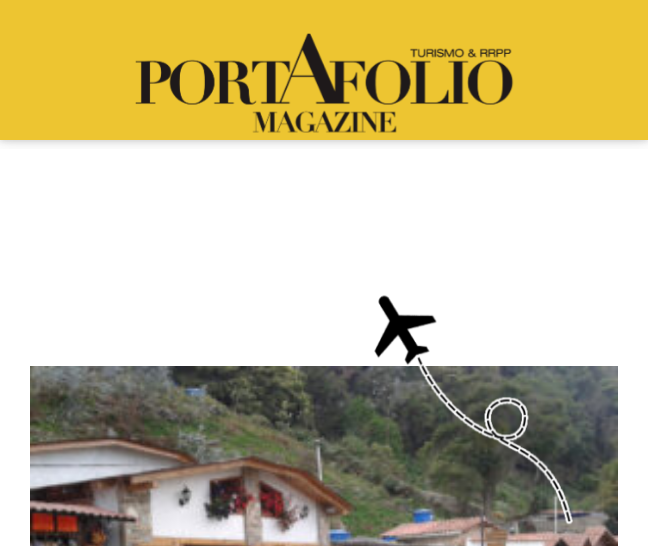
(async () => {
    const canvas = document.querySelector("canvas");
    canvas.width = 648;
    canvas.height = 546;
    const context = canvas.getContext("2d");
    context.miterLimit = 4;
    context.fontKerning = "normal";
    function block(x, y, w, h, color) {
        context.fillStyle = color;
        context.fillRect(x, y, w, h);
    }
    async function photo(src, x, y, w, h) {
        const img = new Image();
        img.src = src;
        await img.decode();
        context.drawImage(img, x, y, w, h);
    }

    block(0, 0, 648, 546, "rgb(255, 255, 255)");
    context.fillStyle = "rgb(234, 234, 234)";
    context.filter = "blur(2px)";
    context.beginPath();
    context.rect(0, 2, 648, 140);
    context.fill();
    context.filter = "none";
    block(0, 0, 648, 140, "rgb(237, 197, 49)");
    await photo("media/1.png", 135, 33, 379, 100);
    await photo("media/2.png", 30, 366, 588, 180);
    await photo("media/3.png", 374, 295, 199, 230);
    context.save();
    context.beginPath();
    context.rect(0, 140, 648, 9);
    context.clip();
    context.fillStyle = "rgba(0, 0, 0, 0.15)";
    context.filter = "blur(8px)";
    context.beginPath();
    context.rect(0, 0, 648, 140);
    context.fill();
    context.filter = "none";
    context.restore();
})();
